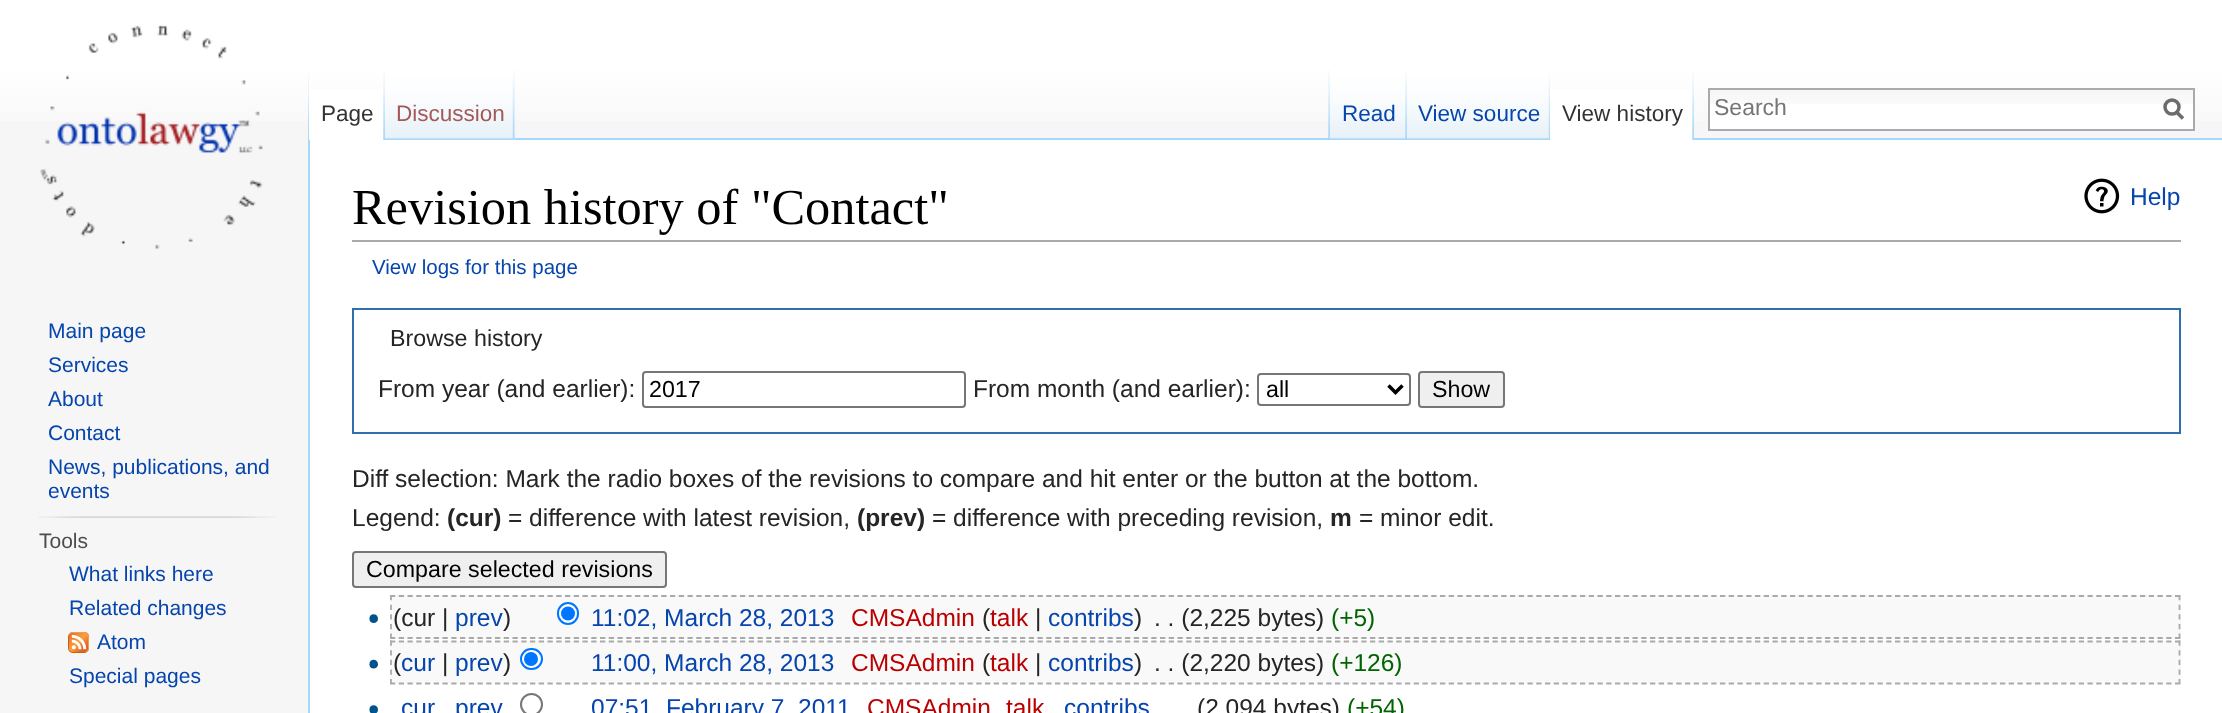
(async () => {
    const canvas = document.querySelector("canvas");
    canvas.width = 2222;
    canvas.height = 713;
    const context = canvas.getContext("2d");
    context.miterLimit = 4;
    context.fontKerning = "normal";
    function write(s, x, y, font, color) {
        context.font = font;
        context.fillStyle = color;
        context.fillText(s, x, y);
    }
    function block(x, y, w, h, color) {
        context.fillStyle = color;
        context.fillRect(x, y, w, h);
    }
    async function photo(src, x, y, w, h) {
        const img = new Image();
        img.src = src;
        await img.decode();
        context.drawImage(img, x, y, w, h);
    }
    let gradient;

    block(0, 0, 2222, 713, "rgb(246, 246, 246)");
    gradient = context.createLinearGradient(1111, 0, 1111, 140);
    gradient.addColorStop(0.5, "rgb(255, 255, 255)");
    gradient.addColorStop(1, "rgb(246, 246, 246)");
    context.fillStyle = gradient;
    context.fillRect(0, 0, 2222, 121);
    await photo("media/1.png", 308, 70, 1, 68);
    block(308, 138, 2, 575, "rgb(167, 215, 249)");
    block(309, 89, 76, 51, "rgb(255, 255, 255)");
    await photo("media/2.png", 383, 71, 2, 69);
    write("Page", 321, 121, "22.5px Liberation Sans", "rgb(51, 51, 51)");
    block(514, 70, 1, 70, "rgb(243, 243, 243)");
    await photo("media/3.png", 385, 70, 130, 70);
    await photo("media/4.png", 512, 71, 3, 69);
    write("Discussion", 396, 121, "22.5px Liberation Sans", "rgb(165, 88, 88)");
    await photo("media/5.png", 1328, 70, 2, 68);
    block(515, 138, 1707, 2, "rgb(167, 215, 249)");
    await photo("media/6.png", 1330, 70, 77, 70);
    await photo("media/7.png", 1405, 71, 2, 68);
    write("Read", 1342, 121, "22.5px Liberation Sans", "rgb(6, 69, 173)");
    await photo("media/8.png", 1407, 70, 143, 70);
    await photo("media/9.png", 1548, 71, 2, 69);
    write("View source", 1418, 121, "22.5px Liberation Sans", "rgb(6, 69, 173)");
    block(1550, 89, 144, 51, "rgb(255, 255, 255)");
    await photo("media/2.png", 1692, 71, 2, 69);
    write("View history", 1562, 121, "22.5px Liberation Sans", "rgb(51, 51, 51)");
    block(1710, 104, 483, 25, "rgb(255, 255, 255)");
    await photo("media/10.png", 1710, 90, 483, 14);
    context.strokeStyle = "rgb(170, 170, 170)";
    context.lineWidth = 2;
    context.strokeRect(1709, 89, 485, 41);
    write("Search", 1714, 115, "23px Liberation Sans", "rgb(117, 117, 117)");
    context.beginPath();
    context.moveTo(2183, 118.5);
    context.lineTo(2176, 111.5);
    context.strokeStyle = "rgb(108, 108, 108)";
    context.lineWidth = 3.5;
    context.stroke();
    context.beginPath();
    context.arc(2172, 107, 7, 0, Math.PI * 2);
    context.stroke();
    await photo("media/11.png", 40, 25, 223, 224);
    write("Main page", 48, 338, "21px Liberation Sans", "rgb(6, 69, 173)");
    write("Services", 48, 372, "21px Liberation Sans", "rgb(6, 69, 173)");
    write("About", 48, 406, "21px Liberation Sans", "rgb(6, 69, 173)");
    write("Contact", 48, 440, "21px Liberation Sans", "rgb(6, 69, 173)");
    write("News, publications, and", 48, 474, "21px Liberation Sans", "rgb(6, 69, 173)");
    write("events", 48, 498, "21px Liberation Sans", "rgb(6, 69, 173)");
    await photo("media/12.png", 38, 516, 237, 2);
    write("Tools", 39, 548, "21px Liberation Sans", "rgb(77, 77, 77)");
    write("What links here", 69, 581, "21px Liberation Sans", "rgb(6, 69, 173)");
    write("Related changes", 69, 615, "21px Liberation Sans", "rgb(6, 69, 173)");
    await photo("media/13.png", 68, 632, 21, 21);
    write("Atom", 97, 649, "21px Liberation Sans", "rgb(6, 69, 173)");
    write("Special pages", 69, 683, "21px Liberation Sans", "rgb(6, 69, 173)");
    block(310, 140, 1912, 573, "rgb(255, 255, 255)");
    block(352, 240, 1829, 2, "rgb(170, 170, 170)");
    write("Revision history of \"Contact\"", 352, 224, "50.4px Liberation Serif", "rgb(0, 0, 0)");
    await photo("media/14.png", 2084, 178, 36, 36);
    write("Help", 2130, 205, "24.5px Liberation Sans", "rgb(6, 69, 173)");
    write("View logs for this page", 372, 274, "20.5px Liberation Sans", "rgb(6, 69, 173)");
    context.strokeStyle = "rgb(47, 111, 171)";
    context.lineWidth = 2;
    context.strokeRect(353, 309, 1827, 124);
    write("Browse history", 390, 346, "23.25px Liberation Sans", "rgb(37, 37, 37)");
    write("From year (and earlier):", 378, 397, "24.5px Liberation Sans", "rgb(37, 37, 37)");
    context.beginPath();
    context.roundRect(643, 372, 322, 35, 3);
    context.strokeStyle = "rgb(118, 118, 118)";
    context.stroke();
    write("2017", 649, 397, "23.25px Liberation Sans", "rgb(0, 0, 0)");
    write("From month (and earlier):", 973, 397, "24.5px Liberation Sans", "rgb(37, 37, 37)");
    context.beginPath();
    context.roundRect(1258, 374, 152, 31, 3);
    context.stroke();
    context.beginPath();
    context.moveTo(1388.5, 385.5);
    context.lineTo(1395.5, 392.5);
    context.lineTo(1402.5, 385.5);
    context.strokeStyle = "rgb(0, 0, 0)";
    context.lineWidth = 3.5;
    context.stroke();
    write("all", 1266, 397, "23.25px Liberation Sans", "rgb(0, 0, 0)");
    context.fillStyle = "rgb(239, 239, 239)";
    context.beginPath();
    context.roundRect(1419, 372, 85, 35, 3);
    context.fill();
    context.strokeStyle = "rgb(118, 118, 118)";
    context.lineWidth = 2;
    context.stroke();
    write("Show", 1432, 397, "23.25px Liberation Sans", "rgb(0, 0, 0)");
    write("Diff selection: Mark the radio boxes of the revisions to compare and hit enter or the button at the bottom.", 352, 487, "24.5px Liberation Sans", "rgb(37, 37, 37)");
    write("Legend:", 352, 526, "24.5px Liberation Sans", "rgb(37, 37, 37)");
    write("(cur)", 447, 526, "bold 24.5px Liberation Sans", "rgb(37, 37, 37)");
    write("= difference with latest revision,", 508, 526, "24.5px Liberation Sans", "rgb(37, 37, 37)");
    write("(prev)", 857, 526, "bold 24.5px Liberation Sans", "rgb(37, 37, 37)");
    write("= difference with preceding revision,", 932, 526, "24.5px Liberation Sans", "rgb(37, 37, 37)");
    write("m", 1330, 526, "bold 24.5px Liberation Sans", "rgb(37, 37, 37)");
    write("= minor edit.", 1359, 526, "24.5px Liberation Sans", "rgb(37, 37, 37)");
    context.fillStyle = "rgb(239, 239, 239)";
    context.beginPath();
    context.roundRect(353, 552, 313, 35, 3);
    context.fill();
    context.stroke();
    write("Compare selected revisions", 366, 577, "23.25px Liberation Sans", "rgb(0, 0, 0)");
    block(390, 595, 1791, 44, "rgb(249, 249, 249)");
    context.beginPath();
    context.moveTo(390, 596);
    context.lineTo(2180.5, 596);
    context.strokeStyle = "rgb(170, 170, 170)";
    context.lineWidth = 1.8;
    context.setLineDash([5.25, 3.5]);
    context.stroke();
    context.beginPath();
    context.moveTo(2179.5, 595);
    context.lineTo(2179.5, 639);
    context.setLineDash([5.25, 4.38]);
    context.stroke();
    context.beginPath();
    context.moveTo(390, 638);
    context.lineTo(2180.5, 638);
    context.setLineDash([5.25, 3.5]);
    context.stroke();
    context.beginPath();
    context.moveTo(391, 595);
    context.lineTo(391, 639);
    context.setLineDash([5.25, 4.38]);
    context.stroke();
    await photo("media/15.png", 369, 614, 9, 9);
    write("(cur |", 393, 626, "24.5px Liberation Sans", "rgb(37, 37, 37)");
    write("prev", 455, 626, "24.5px Liberation Sans", "rgb(6, 69, 173)");
    write(")", 503, 626, "24.5px Liberation Sans", "rgb(37, 37, 37)");
    context.fillStyle = "rgb(255, 255, 255)";
    context.beginPath();
    context.roundRect(558, 603, 20, 21, 10);
    context.fill();
    context.strokeStyle = "rgb(0, 117, 255)";
    context.lineWidth = 2;
    context.setLineDash([]);
    context.stroke();
    context.fillStyle = "rgb(0, 117, 255)";
    context.beginPath();
    context.arc(568, 613.5, 7, 0, Math.PI * 2);
    context.fill();
    write("11:02, March 28, 2013", 591, 626, "24.5px Liberation Sans", "rgb(6, 69, 173)");
    write("CMSAdmin", 851, 626, "24.5px Liberation Sans", "rgb(186, 0, 0)");
    write("(", 982, 626, "24.5px Liberation Sans", "rgb(37, 37, 37)");
    write("talk", 990, 626, "24.5px Liberation Sans", "rgb(186, 0, 0)");
    write("|", 1035, 626, "24.5px Liberation Sans", "rgb(37, 37, 37)");
    write("contribs", 1048, 626, "24.5px Liberation Sans", "rgb(6, 69, 173)");
    write(")", 1134, 626, "24.5px Liberation Sans", "rgb(37, 37, 37)");
    write(". . (2,225 bytes)", 1154, 626, "24.5px Liberation Sans", "rgb(37, 37, 37)");
    write("(+5)", 1331, 626, "24.5px Liberation Sans", "rgb(0, 100, 0)");
    block(390, 641, 1791, 43, "rgb(249, 249, 249)");
    context.beginPath();
    context.moveTo(390, 641.5);
    context.lineTo(2180.5, 641.5);
    context.strokeStyle = "rgb(170, 170, 170)";
    context.lineWidth = 1.8;
    context.setLineDash([5.25, 3.5]);
    context.stroke();
    context.beginPath();
    context.moveTo(2179.5, 640.5);
    context.lineTo(2179.5, 684);
    context.setLineDash([5.25, 4.38]);
    context.stroke();
    context.beginPath();
    context.moveTo(390, 683.5);
    context.lineTo(2180.5, 683.5);
    context.setLineDash([5.25, 3.5]);
    context.stroke();
    context.beginPath();
    context.moveTo(391, 640.5);
    context.lineTo(391, 684);
    context.setLineDash([5.25, 4.38]);
    context.stroke();
    await photo("media/16.png", 369, 659, 9, 10);
    write("(", 393, 671, "24.5px Liberation Sans", "rgb(37, 37, 37)");
    write("cur", 401, 671, "24.5px Liberation Sans", "rgb(6, 69, 173)");
    write("|", 442, 671, "24.5px Liberation Sans", "rgb(37, 37, 37)");
    write("prev", 455, 671, "24.5px Liberation Sans", "rgb(6, 69, 173)");
    write(")", 503, 671, "24.5px Liberation Sans", "rgb(37, 37, 37)");
    context.fillStyle = "rgb(255, 255, 255)";
    context.beginPath();
    context.roundRect(521, 649, 21, 20, 10);
    context.fill();
    context.strokeStyle = "rgb(0, 117, 255)";
    context.lineWidth = 2;
    context.setLineDash([]);
    context.stroke();
    context.fillStyle = "rgb(0, 117, 255)";
    context.beginPath();
    context.arc(531, 659, 7, 0, Math.PI * 2);
    context.fill();
    write("11:00, March 28, 2013", 591, 671, "24.5px Liberation Sans", "rgb(6, 69, 173)");
    write("CMSAdmin", 851, 671, "24.5px Liberation Sans", "rgb(186, 0, 0)");
    write("(", 982, 671, "24.5px Liberation Sans", "rgb(37, 37, 37)");
    write("talk", 990, 671, "24.5px Liberation Sans", "rgb(186, 0, 0)");
    write("|", 1035, 671, "24.5px Liberation Sans", "rgb(37, 37, 37)");
    write("contribs", 1048, 671, "24.5px Liberation Sans", "rgb(6, 69, 173)");
    write(")", 1134, 671, "24.5px Liberation Sans", "rgb(37, 37, 37)");
    write(". . (2,220 bytes)", 1154, 671, "24.5px Liberation Sans", "rgb(37, 37, 37)");
    write("(+126)", 1331, 671, "24.5px Liberation Sans", "rgb(0, 100, 0)");
    await photo("media/17.png", 369, 705, 9, 8);
    write("cur", 401, 716, "24.5px Liberation Sans", "rgb(6, 69, 173)");
    write("prev", 455, 716, "24.5px Liberation Sans", "rgb(6, 69, 173)");
    context.beginPath();
    context.arc(531.5, 704.5, 10.5, 0, Math.PI * 2);
    context.strokeStyle = "rgb(118, 118, 118)";
    context.stroke();
    write("07:51, February 7, 2011", 591, 716, "24.5px Liberation Sans", "rgb(6, 69, 173)");
    write("CMSAdmin", 867, 716, "24.5px Liberation Sans", "rgb(186, 0, 0)");
    write("talk", 1006, 716, "24.5px Liberation Sans", "rgb(186, 0, 0)");
    write("contribs", 1064, 716, "24.5px Liberation Sans", "rgb(6, 69, 173)");
    write("(2,094 bytes)", 1197, 716, "24.5px Liberation Sans", "rgb(37, 37, 37)");
    write("(+54)", 1347, 716, "24.5px Liberation Sans", "rgb(0, 100, 0)");
})();
